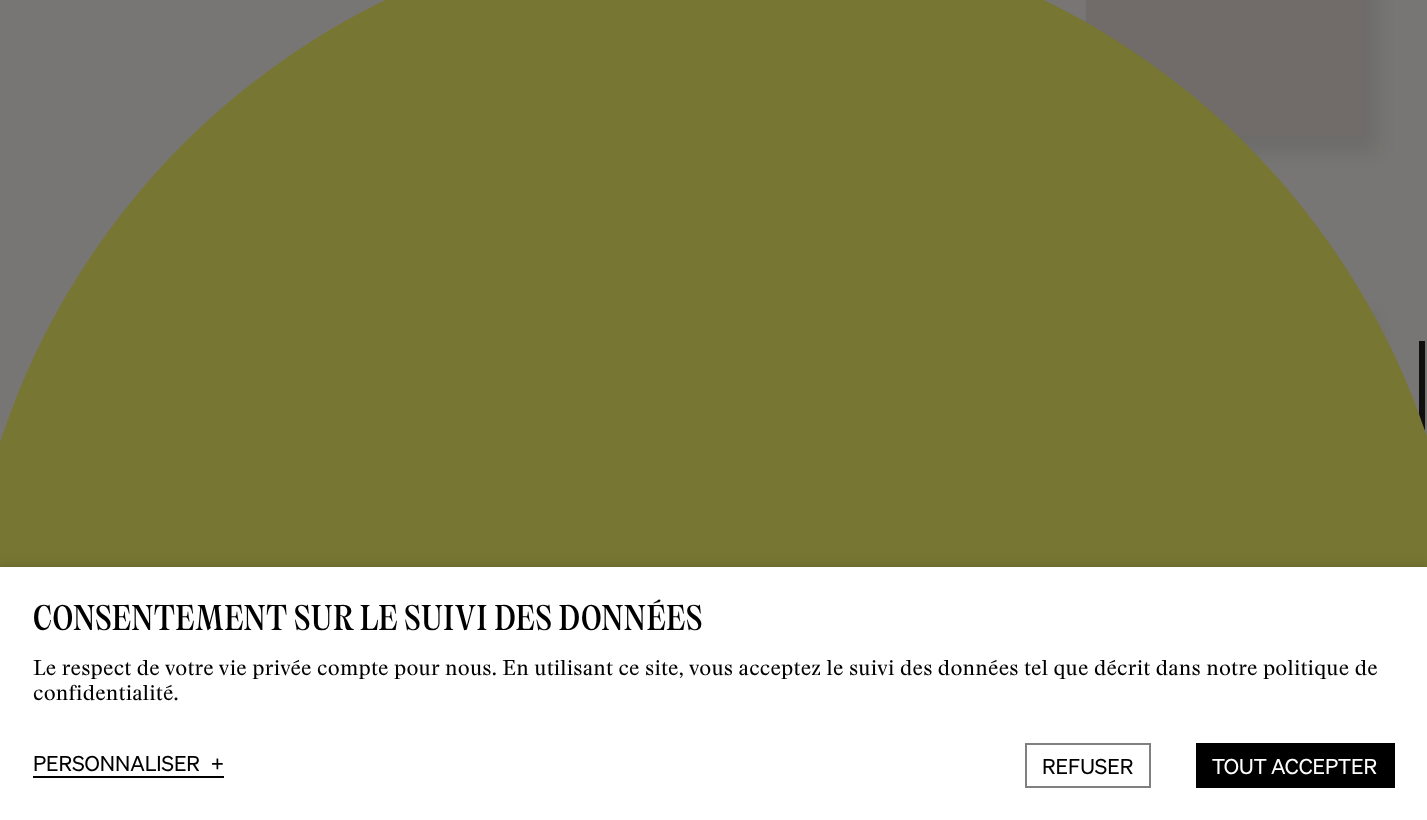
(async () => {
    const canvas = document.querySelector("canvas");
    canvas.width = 1427;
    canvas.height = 820;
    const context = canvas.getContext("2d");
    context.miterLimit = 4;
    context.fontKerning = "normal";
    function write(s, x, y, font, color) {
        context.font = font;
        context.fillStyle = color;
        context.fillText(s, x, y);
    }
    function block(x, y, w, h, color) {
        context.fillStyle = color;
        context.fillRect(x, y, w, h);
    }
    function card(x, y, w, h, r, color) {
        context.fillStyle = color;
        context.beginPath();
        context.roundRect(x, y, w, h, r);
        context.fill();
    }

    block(0, 0, 1427, 820, "rgb(120, 118, 116)");
    context.fillStyle = "rgba(15, 15, 14, 0.1)";
    context.filter = "blur(8.5px)";
    context.beginPath();
    context.rect(1100, -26, 277, 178);
    context.fill();
    context.filter = "none";
    block(1086, 0, 278, 135, "rgb(113, 108, 105)");
    context.fillStyle = "rgba(15, 15, 14, 0.1)";
    context.filter = "blur(8.5px)";
    context.beginPath();
    context.rect(1101, 317, 273, 412);
    context.fill();
    context.filter = "none";
    block(1419, 341, 6, 89, "rgb(15, 15, 14)");
    card(-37, -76, 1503, 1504, 751.5, "rgb(120, 118, 51)");
    context.fillStyle = "rgba(0, 0, 0, 0.1)";
    context.filter = "blur(9px)";
    context.beginPath();
    context.rect(2, 569, 1425, 250);
    context.fill();
    context.filter = "none";
    context.filter = "blur(3px)";
    context.beginPath();
    context.rect(0, 567, 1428, 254);
    context.fill();
    context.filter = "none";
    block(0, 567, 1427, 253, "rgb(255, 255, 255)");
    context.letterSpacing = "0.65px";
    write("CONSENTEMENT SUR LE SUIVI DES DONNÉES", 33, 630, "33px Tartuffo", "rgb(0, 0, 0)");
    context.letterSpacing = "0.22px";
    write("Le respect de votre vie privée compte pour nous. En utilisant ce site, vous acceptez le suivi des données tel que décrit dans notre politique de", 33, 675, "21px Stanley", "rgb(0, 0, 0)");
    write("confidentialité.", 33, 700, "21px Stanley", "rgb(0, 0, 0)");
    context.letterSpacing = "0px";
    write("PERSONNALISER", 33, 771, "21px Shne", "rgb(0, 0, 0)");
    write("+", 211, 771, "21px Shne", "rgb(0, 0, 0)");
    block(33, 776, 191, 2, "rgb(0, 0, 0)");
    context.strokeStyle = "rgb(128, 128, 128)";
    context.lineWidth = 2;
    context.strokeRect(1026, 744, 124, 43);
    write("REFUSER", 1042, 774, "21px Shne", "rgb(0, 0, 0)");
    block(1196, 743, 199, 45, "rgb(0, 0, 0)");
    write("TOUT ACCEPTER", 1212, 774, "21px Shne", "rgb(255, 255, 255)");
})();
